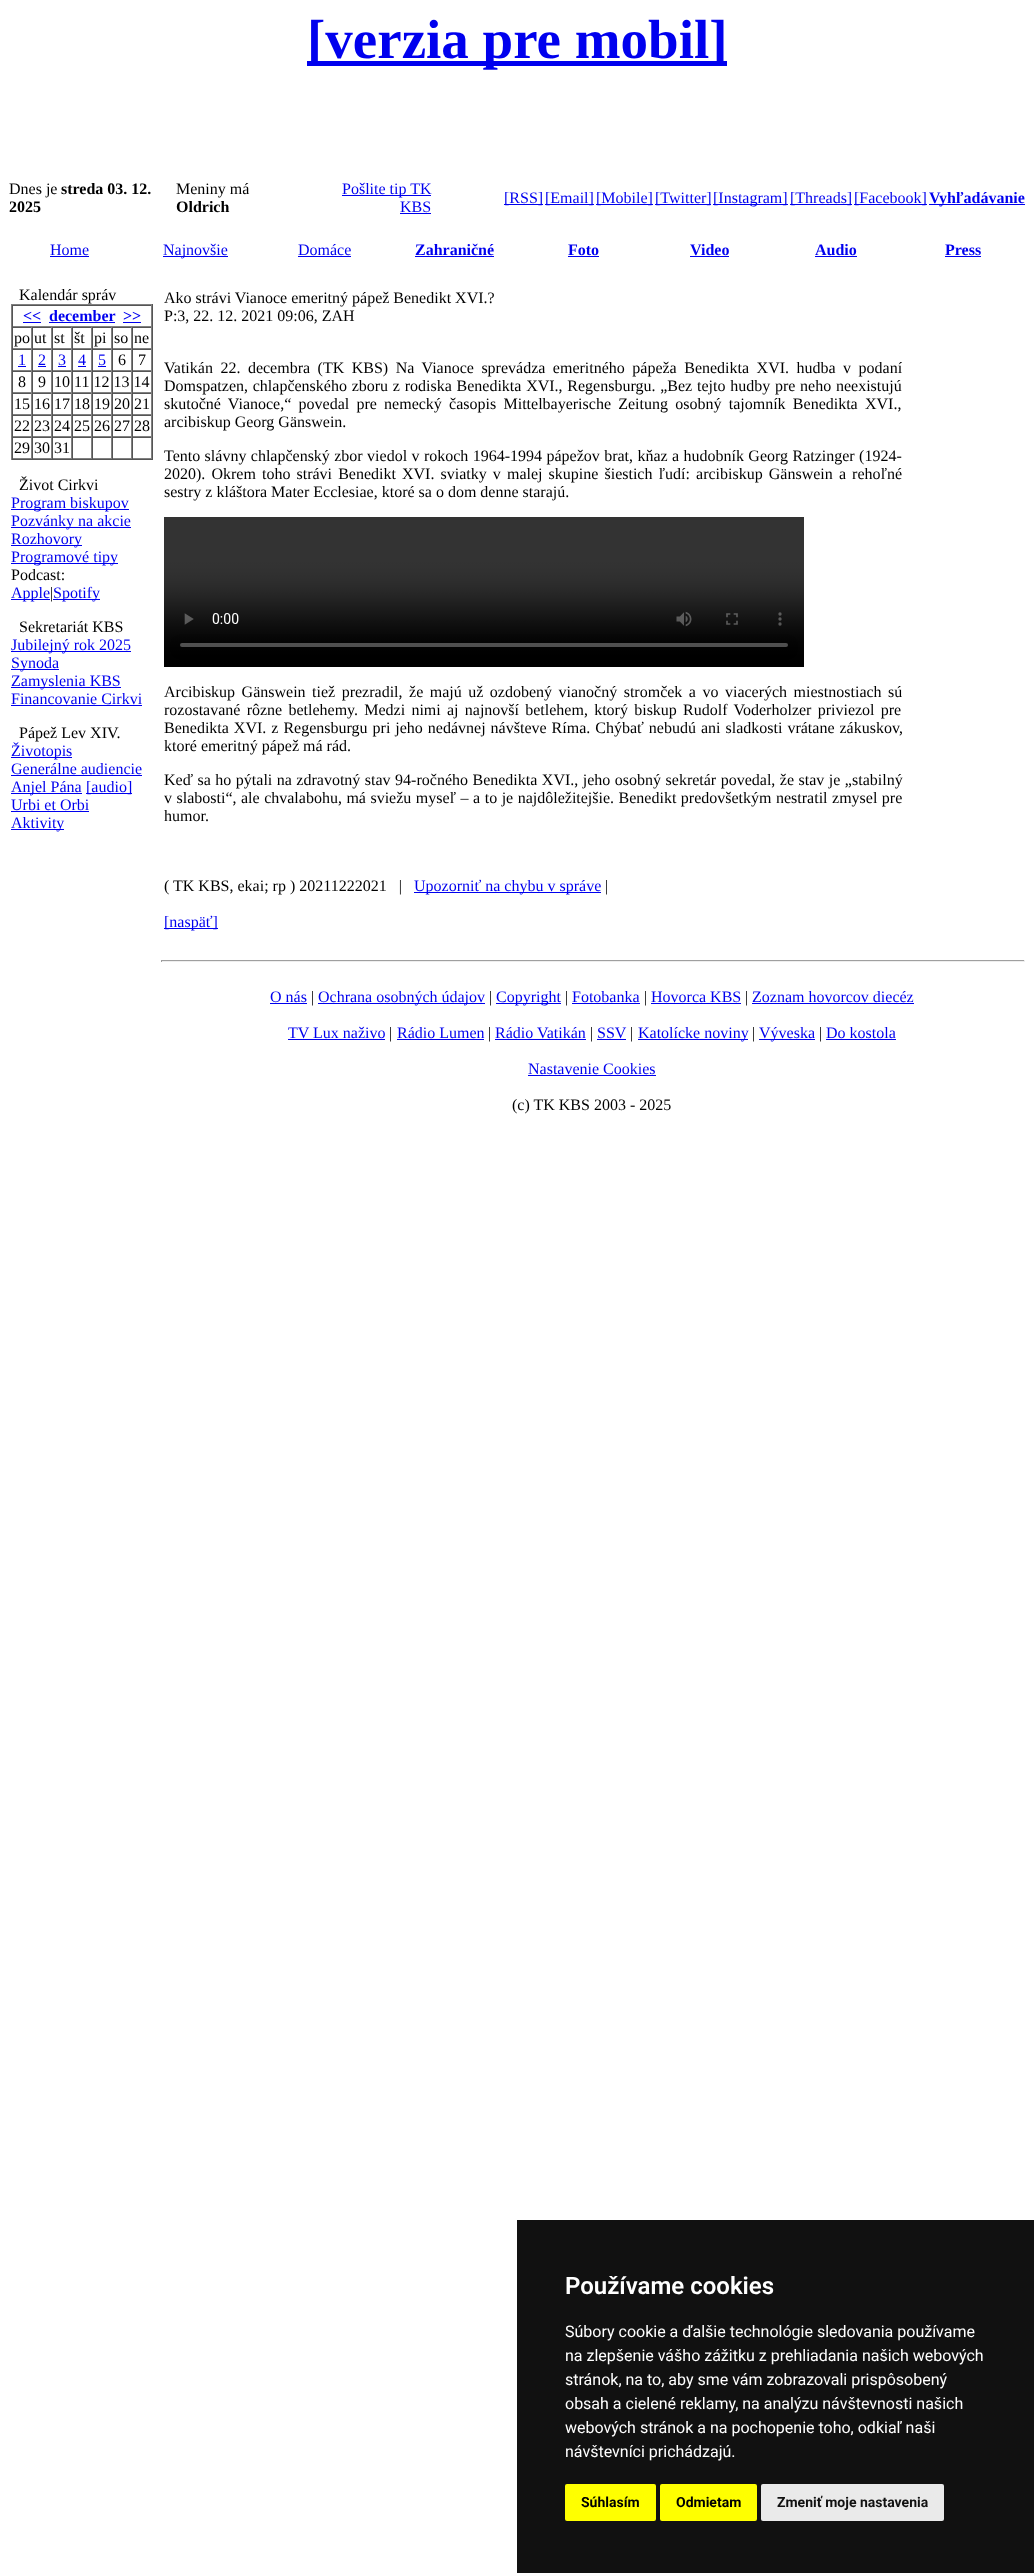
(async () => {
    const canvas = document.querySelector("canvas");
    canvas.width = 1034;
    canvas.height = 2573;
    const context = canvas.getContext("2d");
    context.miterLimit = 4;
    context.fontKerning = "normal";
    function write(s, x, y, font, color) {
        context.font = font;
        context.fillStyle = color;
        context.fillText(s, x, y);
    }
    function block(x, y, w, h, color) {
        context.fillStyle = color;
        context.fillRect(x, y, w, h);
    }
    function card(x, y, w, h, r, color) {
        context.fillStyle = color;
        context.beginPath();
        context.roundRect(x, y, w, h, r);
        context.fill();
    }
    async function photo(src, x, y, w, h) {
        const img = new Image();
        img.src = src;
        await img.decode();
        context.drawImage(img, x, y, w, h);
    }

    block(0, 0, 1034, 2573, "rgb(255, 255, 255)");
    block(307, 61, 420, 5, "rgb(0, 0, 238)");
    write("[verzia pre mobil]", 307, 58, "bold 55px Liberation Serif", "rgb(0, 0, 238)");
    write("Dnes je", 9, 194, "16px Liberation Serif", "rgb(0, 0, 0)");
    write("streda 03. 12.", 61, 194, "bold 16px Liberation Serif", "rgb(0, 0, 0)");
    write("2025", 9, 212, "bold 16px Liberation Serif", "rgb(0, 0, 0)");
    write("Meniny má", 176, 194, "16px Liberation Serif", "rgb(0, 0, 0)");
    write("Oldrich", 176, 212, "bold 16px Liberation Serif", "rgb(0, 0, 0)");
    block(342, 195, 89, 1, "rgb(0, 0, 238)");
    write("Pošlite tip TK", 342, 194, "16px Liberation Serif", "rgb(0, 0, 238)");
    write("KBS", 400, 212, "16px Liberation Serif", "rgb(0, 0, 238)");
    block(400, 213, 31, 1, "rgb(0, 0, 238)");
    block(504, 204, 39, 1, "rgb(0, 0, 238)");
    write("[RSS]", 504, 203, "16px Liberation Serif", "rgb(0, 0, 238)");
    block(545, 204, 49, 1, "rgb(0, 0, 238)");
    write("[Email]", 545, 203, "16px Liberation Serif", "rgb(0, 0, 238)");
    block(596, 204, 57, 1, "rgb(0, 0, 238)");
    write("[Mobile]", 596, 203, "16px Liberation Serif", "rgb(0, 0, 238)");
    block(655, 204, 56, 1, "rgb(0, 0, 238)");
    write("[Twitter]", 655, 203, "16px Liberation Serif", "rgb(0, 0, 238)");
    block(713, 204, 75, 1, "rgb(0, 0, 238)");
    write("[Instagram]", 713, 203, "16px Liberation Serif", "rgb(0, 0, 238)");
    block(790, 204, 62, 1, "rgb(0, 0, 238)");
    write("[Threads]", 790, 203, "16px Liberation Serif", "rgb(0, 0, 238)");
    block(854, 204, 73, 1, "rgb(0, 0, 238)");
    write("[Facebook]", 854, 203, "16px Liberation Serif", "rgb(0, 0, 238)");
    block(929, 204, 96, 1, "rgb(0, 0, 238)");
    write("Vyhľadávanie", 929, 203, "bold 16px Liberation Serif", "rgb(0, 0, 238)");
    write("Home", 50, 255, "16px Liberation Serif", "rgb(0, 0, 238)");
    block(50, 256, 39, 1, "rgb(0, 0, 238)");
    block(163, 256, 65, 1, "rgb(0, 0, 238)");
    write("Najnovšie", 163, 255, "16px Liberation Serif", "rgb(0, 0, 238)");
    write("Domáce", 298, 255, "16px Liberation Serif", "rgb(0, 0, 238)");
    block(298, 256, 53, 1, "rgb(0, 0, 238)");
    write("Zahraničné", 415, 255, "bold 16px Liberation Serif", "rgb(0, 0, 238)");
    block(415, 256, 79, 1, "rgb(0, 0, 238)");
    write("Foto", 568, 255, "bold 16px Liberation Serif", "rgb(0, 0, 238)");
    block(568, 256, 31, 1, "rgb(0, 0, 238)");
    write("Video", 690, 255, "bold 16px Liberation Serif", "rgb(0, 0, 238)");
    block(690, 256, 39, 1, "rgb(0, 0, 238)");
    write("Audio", 815, 255, "bold 16px Liberation Serif", "rgb(0, 0, 238)");
    block(815, 256, 42, 1, "rgb(0, 0, 238)");
    write("Press", 945, 255, "bold 16px Liberation Serif", "rgb(0, 0, 238)");
    block(945, 256, 36, 1, "rgb(0, 0, 238)");
    write("Kalendár správ", 19, 300, "16px Liberation Serif", "rgb(0, 0, 0)");
    block(11, 304, 142, 1, "rgb(128, 128, 128)");
    block(152, 304, 1, 156, "rgb(85, 85, 85)");
    block(11, 459, 142, 1, "rgb(85, 85, 85)");
    block(11, 304, 1, 156, "rgb(128, 128, 128)");
    block(12, 305, 140, 1, "rgb(85, 85, 85)");
    block(151, 305, 1, 22, "rgb(128, 128, 128)");
    block(12, 326, 140, 1, "rgb(128, 128, 128)");
    block(12, 305, 1, 22, "rgb(85, 85, 85)");
    write("<<", 23, 321, "bold 16px Liberation Serif", "rgb(0, 0, 238)");
    block(23, 322, 18, 1, "rgb(0, 0, 238)");
    write("december", 49, 321, "bold 16px Liberation Serif", "rgb(0, 0, 238)");
    block(49, 322, 66, 1, "rgb(0, 0, 238)");
    write(">>", 123, 321, "bold 16px Liberation Serif", "rgb(0, 0, 238)");
    block(123, 322, 18, 1, "rgb(0, 0, 238)");
    block(12, 327, 140, 1, "rgb(85, 85, 85)");
    block(51, 327, 1, 22, "rgb(128, 128, 128)");
    block(32, 348, 20, 1, "rgb(128, 128, 128)");
    block(32, 327, 1, 22, "rgb(85, 85, 85)");
    block(91, 327, 1, 22, "rgb(128, 128, 128)");
    block(72, 348, 20, 1, "rgb(128, 128, 128)");
    block(72, 327, 1, 22, "rgb(85, 85, 85)");
    write("št", 74, 343, "16px Liberation Serif", "rgb(0, 0, 0)");
    block(111, 327, 1, 22, "rgb(128, 128, 128)");
    block(92, 348, 20, 1, "rgb(128, 128, 128)");
    block(92, 327, 1, 22, "rgb(85, 85, 85)");
    write("pi", 94, 343, "16px Liberation Serif", "rgb(0, 0, 0)");
    block(31, 327, 1, 22, "rgb(128, 128, 128)");
    block(12, 348, 20, 1, "rgb(128, 128, 128)");
    block(12, 327, 1, 22, "rgb(85, 85, 85)");
    write("po ut", 14, 343, "16px Liberation Serif", "rgb(0, 0, 0)");
    block(71, 327, 1, 22, "rgb(128, 128, 128)");
    block(52, 348, 20, 1, "rgb(128, 128, 128)");
    block(52, 327, 1, 22, "rgb(85, 85, 85)");
    write("st", 54, 343, "16px Liberation Serif", "rgb(0, 0, 0)");
    block(131, 327, 1, 22, "rgb(128, 128, 128)");
    block(112, 348, 20, 1, "rgb(128, 128, 128)");
    block(112, 327, 1, 22, "rgb(85, 85, 85)");
    write("so", 114, 343, "16px Liberation Serif", "rgb(0, 0, 0)");
    block(151, 327, 1, 22, "rgb(128, 128, 128)");
    block(132, 348, 20, 1, "rgb(128, 128, 128)");
    block(132, 327, 1, 22, "rgb(85, 85, 85)");
    write("ne", 134, 343, "16px Liberation Serif", "rgb(0, 0, 0)");
    block(12, 349, 140, 1, "rgb(85, 85, 85)");
    block(31, 349, 1, 22, "rgb(128, 128, 128)");
    block(12, 370, 20, 1, "rgb(128, 128, 128)");
    block(12, 349, 1, 22, "rgb(85, 85, 85)");
    write("1", 18, 365, "16px Liberation Serif", "rgb(0, 0, 238)");
    block(18, 366, 8, 1, "rgb(0, 0, 238)");
    block(51, 349, 1, 22, "rgb(128, 128, 128)");
    block(32, 370, 20, 1, "rgb(128, 128, 128)");
    block(32, 349, 1, 22, "rgb(85, 85, 85)");
    write("2", 38, 365, "16px Liberation Serif", "rgb(0, 0, 238)");
    block(38, 366, 8, 1, "rgb(0, 0, 238)");
    block(71, 349, 1, 22, "rgb(128, 128, 128)");
    block(52, 370, 20, 1, "rgb(128, 128, 128)");
    block(52, 349, 1, 22, "rgb(85, 85, 85)");
    write("3", 58, 365, "16px Liberation Serif", "rgb(0, 0, 238)");
    block(58, 366, 8, 1, "rgb(0, 0, 238)");
    block(91, 349, 1, 22, "rgb(128, 128, 128)");
    block(72, 370, 20, 1, "rgb(128, 128, 128)");
    block(72, 349, 1, 22, "rgb(85, 85, 85)");
    write("4", 78, 365, "16px Liberation Serif", "rgb(0, 0, 238)");
    block(78, 366, 8, 1, "rgb(0, 0, 238)");
    block(111, 349, 1, 22, "rgb(128, 128, 128)");
    block(92, 370, 20, 1, "rgb(128, 128, 128)");
    block(92, 349, 1, 22, "rgb(85, 85, 85)");
    write("5", 98, 365, "16px Liberation Serif", "rgb(0, 0, 238)");
    block(98, 366, 8, 1, "rgb(0, 0, 238)");
    block(131, 349, 1, 22, "rgb(128, 128, 128)");
    block(112, 370, 20, 1, "rgb(128, 128, 128)");
    block(112, 349, 1, 22, "rgb(85, 85, 85)");
    write("6", 118, 365, "16px Liberation Serif", "rgb(0, 0, 0)");
    block(151, 349, 1, 22, "rgb(128, 128, 128)");
    block(132, 370, 20, 1, "rgb(128, 128, 128)");
    block(132, 349, 1, 22, "rgb(85, 85, 85)");
    write("7", 138, 365, "16px Liberation Serif", "rgb(0, 0, 0)");
    block(12, 371, 140, 1, "rgb(85, 85, 85)");
    block(31, 371, 1, 22, "rgb(128, 128, 128)");
    block(12, 392, 20, 1, "rgb(128, 128, 128)");
    block(12, 371, 1, 22, "rgb(85, 85, 85)");
    write("8", 18, 387, "16px Liberation Serif", "rgb(0, 0, 0)");
    block(51, 371, 1, 22, "rgb(128, 128, 128)");
    block(32, 392, 20, 1, "rgb(128, 128, 128)");
    block(32, 371, 1, 22, "rgb(85, 85, 85)");
    write("9", 38, 387, "16px Liberation Serif", "rgb(0, 0, 0)");
    block(91, 371, 1, 22, "rgb(128, 128, 128)");
    block(72, 392, 20, 1, "rgb(128, 128, 128)");
    block(72, 371, 1, 22, "rgb(85, 85, 85)");
    block(111, 371, 1, 22, "rgb(128, 128, 128)");
    block(92, 392, 20, 1, "rgb(128, 128, 128)");
    block(92, 371, 1, 22, "rgb(85, 85, 85)");
    block(131, 371, 1, 22, "rgb(128, 128, 128)");
    block(112, 392, 20, 1, "rgb(128, 128, 128)");
    block(112, 371, 1, 22, "rgb(85, 85, 85)");
    block(151, 371, 1, 22, "rgb(128, 128, 128)");
    block(132, 392, 20, 1, "rgb(128, 128, 128)");
    block(132, 371, 1, 22, "rgb(85, 85, 85)");
    block(71, 371, 1, 22, "rgb(128, 128, 128)");
    block(52, 392, 20, 1, "rgb(128, 128, 128)");
    block(52, 371, 1, 22, "rgb(85, 85, 85)");
    write("10 11 12 13 14", 54, 387, "16px Liberation Serif", "rgb(0, 0, 0)");
    block(12, 393, 140, 1, "rgb(85, 85, 85)");
    block(51, 393, 1, 22, "rgb(128, 128, 128)");
    block(32, 414, 20, 1, "rgb(128, 128, 128)");
    block(32, 393, 1, 22, "rgb(85, 85, 85)");
    block(71, 393, 1, 22, "rgb(128, 128, 128)");
    block(52, 414, 20, 1, "rgb(128, 128, 128)");
    block(52, 393, 1, 22, "rgb(85, 85, 85)");
    block(91, 393, 1, 22, "rgb(128, 128, 128)");
    block(72, 414, 20, 1, "rgb(128, 128, 128)");
    block(72, 393, 1, 22, "rgb(85, 85, 85)");
    block(111, 393, 1, 22, "rgb(128, 128, 128)");
    block(92, 414, 20, 1, "rgb(128, 128, 128)");
    block(92, 393, 1, 22, "rgb(85, 85, 85)");
    block(131, 393, 1, 22, "rgb(128, 128, 128)");
    block(112, 414, 20, 1, "rgb(128, 128, 128)");
    block(112, 393, 1, 22, "rgb(85, 85, 85)");
    block(151, 393, 1, 22, "rgb(128, 128, 128)");
    block(132, 414, 20, 1, "rgb(128, 128, 128)");
    block(132, 393, 1, 22, "rgb(85, 85, 85)");
    block(31, 393, 1, 22, "rgb(128, 128, 128)");
    block(12, 414, 20, 1, "rgb(128, 128, 128)");
    block(12, 393, 1, 22, "rgb(85, 85, 85)");
    write("15 16 17 18 19 20 21", 14, 409, "16px Liberation Serif", "rgb(0, 0, 0)");
    block(12, 415, 140, 1, "rgb(85, 85, 85)");
    block(51, 415, 1, 22, "rgb(128, 128, 128)");
    block(32, 436, 20, 1, "rgb(128, 128, 128)");
    block(32, 415, 1, 22, "rgb(85, 85, 85)");
    block(71, 415, 1, 22, "rgb(128, 128, 128)");
    block(52, 436, 20, 1, "rgb(128, 128, 128)");
    block(52, 415, 1, 22, "rgb(85, 85, 85)");
    block(91, 415, 1, 22, "rgb(128, 128, 128)");
    block(72, 436, 20, 1, "rgb(128, 128, 128)");
    block(72, 415, 1, 22, "rgb(85, 85, 85)");
    block(111, 415, 1, 22, "rgb(128, 128, 128)");
    block(92, 436, 20, 1, "rgb(128, 128, 128)");
    block(92, 415, 1, 22, "rgb(85, 85, 85)");
    block(131, 415, 1, 22, "rgb(128, 128, 128)");
    block(112, 436, 20, 1, "rgb(128, 128, 128)");
    block(112, 415, 1, 22, "rgb(85, 85, 85)");
    block(151, 415, 1, 22, "rgb(128, 128, 128)");
    block(132, 436, 20, 1, "rgb(128, 128, 128)");
    block(132, 415, 1, 22, "rgb(85, 85, 85)");
    block(31, 415, 1, 22, "rgb(128, 128, 128)");
    block(12, 436, 20, 1, "rgb(128, 128, 128)");
    block(12, 415, 1, 22, "rgb(85, 85, 85)");
    write("22 23 24 25 26 27 28", 14, 431, "16px Liberation Serif", "rgb(0, 0, 0)");
    block(12, 437, 140, 1, "rgb(85, 85, 85)");
    block(51, 437, 1, 22, "rgb(128, 128, 128)");
    block(32, 458, 20, 1, "rgb(128, 128, 128)");
    block(32, 437, 1, 22, "rgb(85, 85, 85)");
    block(71, 437, 1, 22, "rgb(128, 128, 128)");
    block(52, 458, 20, 1, "rgb(128, 128, 128)");
    block(52, 437, 1, 22, "rgb(85, 85, 85)");
    block(91, 437, 1, 22, "rgb(128, 128, 128)");
    block(72, 458, 20, 1, "rgb(128, 128, 128)");
    block(72, 437, 1, 22, "rgb(85, 85, 85)");
    block(111, 437, 1, 22, "rgb(128, 128, 128)");
    block(92, 458, 20, 1, "rgb(128, 128, 128)");
    block(92, 437, 1, 22, "rgb(85, 85, 85)");
    block(131, 437, 1, 22, "rgb(128, 128, 128)");
    block(112, 458, 20, 1, "rgb(128, 128, 128)");
    block(112, 437, 1, 22, "rgb(85, 85, 85)");
    block(151, 437, 1, 22, "rgb(128, 128, 128)");
    block(132, 458, 20, 1, "rgb(128, 128, 128)");
    block(132, 437, 1, 22, "rgb(85, 85, 85)");
    block(31, 437, 1, 22, "rgb(128, 128, 128)");
    block(12, 458, 20, 1, "rgb(128, 128, 128)");
    block(12, 437, 1, 22, "rgb(85, 85, 85)");
    write("29 30 31", 14, 453, "16px Liberation Serif", "rgb(0, 0, 0)");
    write("Život Cirkvi", 19, 490, "16px Liberation Serif", "rgb(0, 0, 0)");
    block(11, 509, 118, 1, "rgb(0, 0, 238)");
    write("Program biskupov", 11, 508, "16px Liberation Serif", "rgb(0, 0, 238)");
    block(11, 527, 120, 1, "rgb(0, 0, 238)");
    write("Pozvánky na akcie", 11, 526, "16px Liberation Serif", "rgb(0, 0, 238)");
    block(11, 545, 71, 1, "rgb(0, 0, 238)");
    write("Rozhovory", 11, 544, "16px Liberation Serif", "rgb(0, 0, 238)");
    block(11, 563, 107, 1, "rgb(0, 0, 238)");
    write("Programové tipy", 11, 562, "16px Liberation Serif", "rgb(0, 0, 238)");
    write("Podcast:", 11, 580, "16px Liberation Serif", "rgb(0, 0, 0)");
    block(11, 599, 39, 1, "rgb(0, 0, 238)");
    write("Apple", 11, 598, "16px Liberation Serif", "rgb(0, 0, 238)");
    write("|", 50, 598, "16px Liberation Serif", "rgb(0, 0, 0)");
    block(53, 599, 47, 1, "rgb(0, 0, 238)");
    write("Spotify", 53, 598, "16px Liberation Serif", "rgb(0, 0, 238)");
    write("Sekretariát KBS", 19, 632, "16px Liberation Serif", "rgb(0, 0, 0)");
    block(11, 651, 120, 1, "rgb(0, 0, 238)");
    write("Jubilejný rok 2025", 11, 650, "16px Liberation Serif", "rgb(0, 0, 238)");
    block(11, 669, 48, 1, "rgb(0, 0, 238)");
    write("Synoda", 11, 668, "16px Liberation Serif", "rgb(0, 0, 238)");
    block(11, 687, 110, 1, "rgb(0, 0, 238)");
    write("Zamyslenia KBS", 11, 686, "16px Liberation Serif", "rgb(0, 0, 238)");
    write("Financovanie Cirkvi", 11, 704, "16px Liberation Serif", "rgb(0, 0, 238)");
    block(11, 705, 131, 1, "rgb(0, 0, 238)");
    write("Pápež Lev XIV.", 19, 738, "16px Liberation Serif", "rgb(0, 0, 0)");
    block(11, 757, 61, 1, "rgb(0, 0, 238)");
    write("Životopis", 11, 756, "16px Liberation Serif", "rgb(0, 0, 238)");
    write("Generálne audiencie", 11, 774, "16px Liberation Serif", "rgb(0, 0, 238)");
    block(11, 775, 131, 1, "rgb(0, 0, 238)");
    block(11, 793, 71, 1, "rgb(0, 0, 238)");
    write("Anjel Pána", 11, 792, "16px Liberation Serif", "rgb(0, 0, 238)");
    block(86, 793, 46, 1, "rgb(0, 0, 238)");
    write("[audio]", 86, 792, "16px Liberation Serif", "rgb(0, 0, 238)");
    write("Urbi et Orbi", 11, 810, "16px Liberation Serif", "rgb(0, 0, 238)");
    block(11, 811, 78, 1, "rgb(0, 0, 238)");
    block(11, 829, 53, 1, "rgb(0, 0, 238)");
    write("Aktivity", 11, 828, "16px Liberation Serif", "rgb(0, 0, 238)");
    write("Ako strávi Vianoce emeritný pápež Benedikt XVI.?", 164, 303, "16px Liberation Serif", "rgb(0, 0, 0)");
    write("P:3, 22. 12. 2021 09:06, ZAH", 164, 321, "16px Liberation Serif", "rgb(0, 0, 0)");
    context.wordSpacing = "3.5px";
    write("Vatikán 22. decembra (TK KBS) Na Vianoce sprevádza emeritného pápeža Benedikta XVI. hudba v podaní", 164, 373, "16px Liberation Serif", "rgb(0, 0, 0)");
    context.wordSpacing = "0.75px";
    write("Domspatzen, chlapčenského zboru z rodiska Benedikta XVI., Regensburgu. „Bez tejto hudby pre neho neexistujú", 164, 391, "16px Liberation Serif", "rgb(0, 0, 0)");
    context.wordSpacing = "3.25px";
    write("skutočné Vianoce,“ povedal pre nemecký časopis Mittelbayerische Zeitung osobný tajomník Benedikta XVI.,", 164, 409, "16px Liberation Serif", "rgb(0, 0, 0)");
    context.wordSpacing = "0px";
    write("arcibiskup Georg Gänswein.", 164, 427, "16px Liberation Serif", "rgb(0, 0, 0)");
    context.wordSpacing = "0.4px";
    write("Tento slávny chlapčenský zbor viedol v rokoch 1964-1994 pápežov brat, kňaz a hudobník Georg Ratzinger (1924-", 164, 461, "16px Liberation Serif", "rgb(0, 0, 0)");
    context.wordSpacing = "2.1px";
    write("2020). Okrem toho strávi Benedikt XVI. sviatky v malej skupine šiestich ľudí: arcibiskup Gänswein a rehoľné", 164, 479, "16px Liberation Serif", "rgb(0, 0, 0)");
    context.wordSpacing = "0px";
    write("sestry z kláštora Mater Ecclesiae, ktoré sa o dom denne starajú.", 164, 497, "16px Liberation Serif", "rgb(0, 0, 0)");
    await photo("media/1.png", 164, 517, 640, 150);
    context.wordSpacing = "2.5px";
    write("Arcibiskup Gänswein tiež prezradil, že majú už ozdobený vianočný stromček a vo viacerých miestnostiach sú", 164, 697, "16px Liberation Serif", "rgb(0, 0, 0)");
    context.wordSpacing = "2.25px";
    write("rozostavané rôzne betlehemy. Medzi nimi aj najnovší betlehem, ktorý biskup Rudolf Voderholzer priviezol pre", 164, 715, "16px Liberation Serif", "rgb(0, 0, 0)");
    context.wordSpacing = "1px";
    write("Benedikta XVI. z Regensburgu pri jeho nedávnej návšteve Ríma. Chýbať nebudú ani sladkosti vrátane zákuskov,", 164, 733, "16px Liberation Serif", "rgb(0, 0, 0)");
    context.wordSpacing = "0px";
    write("ktoré emeritný pápež má rád.", 164, 751, "16px Liberation Serif", "rgb(0, 0, 0)");
    context.wordSpacing = "0.5px";
    write("Keď sa ho pýtali na zdravotný stav 94-ročného Benedikta XVI., jeho osobný sekretár povedal, že stav je „stabilný", 164, 785, "16px Liberation Serif", "rgb(0, 0, 0)");
    write("v slabosti“, ale chvalabohu, má sviežu myseľ – a to je najdôležitejšie. Benedikt predovšetkým nestratil zmysel pre", 164, 803, "16px Liberation Serif", "rgb(0, 0, 0)");
    context.wordSpacing = "0px";
    write("humor.", 164, 821, "16px Liberation Serif", "rgb(0, 0, 0)");
    write("( TK KBS, ekai; rp ) 20211222021   |", 164, 891, "16px Liberation Serif", "rgb(0, 0, 0)");
    block(414, 892, 187, 1, "rgb(0, 0, 238)");
    write("Upozorniť na chybu v správe", 414, 891, "16px Liberation Serif", "rgb(0, 0, 238)");
    write("|", 605, 891, "16px Liberation Serif", "rgb(0, 0, 0)");
    block(164, 928, 54, 1, "rgb(0, 0, 238)");
    write("[naspäť]", 164, 927, "16px Liberation Serif", "rgb(0, 0, 238)");
    block(161, 960, 864, 1, "rgb(159, 159, 159)");
    block(1024, 960, 1, 2, "rgb(238, 238, 238)");
    block(161, 961, 864, 1, "rgb(238, 238, 238)");
    block(161, 960, 1, 2, "rgb(159, 159, 159)");
    write("O nás", 270, 1002, "16px Liberation Serif", "rgb(0, 0, 238)");
    block(270, 1003, 37, 1, "rgb(0, 0, 238)");
    write("|", 311, 1002, "16px Liberation Serif", "rgb(0, 0, 0)");
    block(318, 1003, 167, 1, "rgb(0, 0, 238)");
    write("Ochrana osobných údajov", 318, 1002, "16px Liberation Serif", "rgb(0, 0, 238)");
    write("|", 489, 1002, "16px Liberation Serif", "rgb(0, 0, 0)");
    block(496, 1003, 65, 1, "rgb(0, 0, 238)");
    write("Copyright", 496, 1002, "16px Liberation Serif", "rgb(0, 0, 238)");
    write("|", 565, 1002, "16px Liberation Serif", "rgb(0, 0, 0)");
    write("Fotobanka", 572, 1002, "16px Liberation Serif", "rgb(0, 0, 238)");
    block(572, 1003, 68, 1, "rgb(0, 0, 238)");
    write("|", 644, 1002, "16px Liberation Serif", "rgb(0, 0, 0)");
    write("Hovorca KBS", 651, 1002, "16px Liberation Serif", "rgb(0, 0, 238)");
    block(651, 1003, 90, 1, "rgb(0, 0, 238)");
    write("|", 745, 1002, "16px Liberation Serif", "rgb(0, 0, 0)");
    write("Zoznam hovorcov diecéz", 752, 1002, "16px Liberation Serif", "rgb(0, 0, 238)");
    block(752, 1003, 162, 1, "rgb(0, 0, 238)");
    write("TV Lux naživo", 288, 1038, "16px Liberation Serif", "rgb(0, 0, 238)");
    block(288, 1039, 97, 1, "rgb(0, 0, 238)");
    write("|", 389, 1038, "16px Liberation Serif", "rgb(0, 0, 0)");
    write("Rádio Lumen", 397, 1038, "16px Liberation Serif", "rgb(0, 0, 238)");
    block(397, 1039, 87, 1, "rgb(0, 0, 238)");
    write("|", 488, 1038, "16px Liberation Serif", "rgb(0, 0, 0)");
    write("Rádio Vatikán", 495, 1038, "16px Liberation Serif", "rgb(0, 0, 238)");
    block(495, 1039, 91, 1, "rgb(0, 0, 238)");
    write("|", 590, 1038, "16px Liberation Serif", "rgb(0, 0, 0)");
    write("SSV", 597, 1038, "16px Liberation Serif", "rgb(0, 0, 238)");
    block(597, 1039, 29, 1, "rgb(0, 0, 238)");
    write("|", 630, 1038, "16px Liberation Serif", "rgb(0, 0, 0)");
    block(638, 1039, 110, 1, "rgb(0, 0, 238)");
    write("Katolícke noviny", 638, 1038, "16px Liberation Serif", "rgb(0, 0, 238)");
    write("|", 752, 1038, "16px Liberation Serif", "rgb(0, 0, 0)");
    block(759, 1039, 56, 1, "rgb(0, 0, 238)");
    write("Výveska", 759, 1038, "16px Liberation Serif", "rgb(0, 0, 238)");
    write("|", 819, 1038, "16px Liberation Serif", "rgb(0, 0, 0)");
    write("Do kostola", 826, 1038, "16px Liberation Serif", "rgb(0, 0, 238)");
    block(826, 1039, 70, 1, "rgb(0, 0, 238)");
    write("Nastavenie Cookies", 528, 1074, "16px Liberation Serif", "rgb(0, 0, 238)");
    block(528, 1075, 128, 1, "rgb(0, 0, 238)");
    write("(c) TK KBS 2003 - 2025", 512, 1110, "16px Liberation Serif", "rgb(0, 0, 0)");
    block(517, 2220, 517, 353, "rgb(17, 17, 17)");
    write("Používame cookies", 565, 2294, "600 24px Roboto", "rgb(255, 255, 255)");
    write("Súbory cookie a ďalšie technológie sledovania používame", 565, 2337, "16px Roboto", "rgb(255, 255, 255)");
    write("na zlepšenie vášho zážitku z prehliadania našich webových", 565, 2361, "16px Roboto", "rgb(255, 255, 255)");
    write("stránok, na to, aby sme vám zobrazovali prispôsobený", 565, 2385, "16px Roboto", "rgb(255, 255, 255)");
    write("obsah a cielené reklamy, na analýzu návštevnosti našich", 565, 2409, "16px Roboto", "rgb(255, 255, 255)");
    write("webových stránok a na pochopenie toho, odkiaľ naši", 565, 2433, "16px Roboto", "rgb(255, 255, 255)");
    write("návštevníci prichádzajú.", 565, 2457, "16px Roboto", "rgb(255, 255, 255)");
    card(565, 2484, 91, 37, 2, "rgb(255, 255, 0)");
    write("Súhlasím", 581, 2507, "bold 14px Roboto", "rgb(0, 0, 0)");
    card(660, 2484, 97, 37, 2, "rgb(255, 255, 0)");
    write("Odmietam", 676, 2507, "bold 14px Roboto", "rgb(0, 0, 0)");
    card(761, 2484, 183, 37, 2, "rgb(234, 234, 234)");
    write("Zmeniť moje nastavenia", 777, 2507, "bold 14px Roboto", "rgb(17, 17, 17)");
})();
